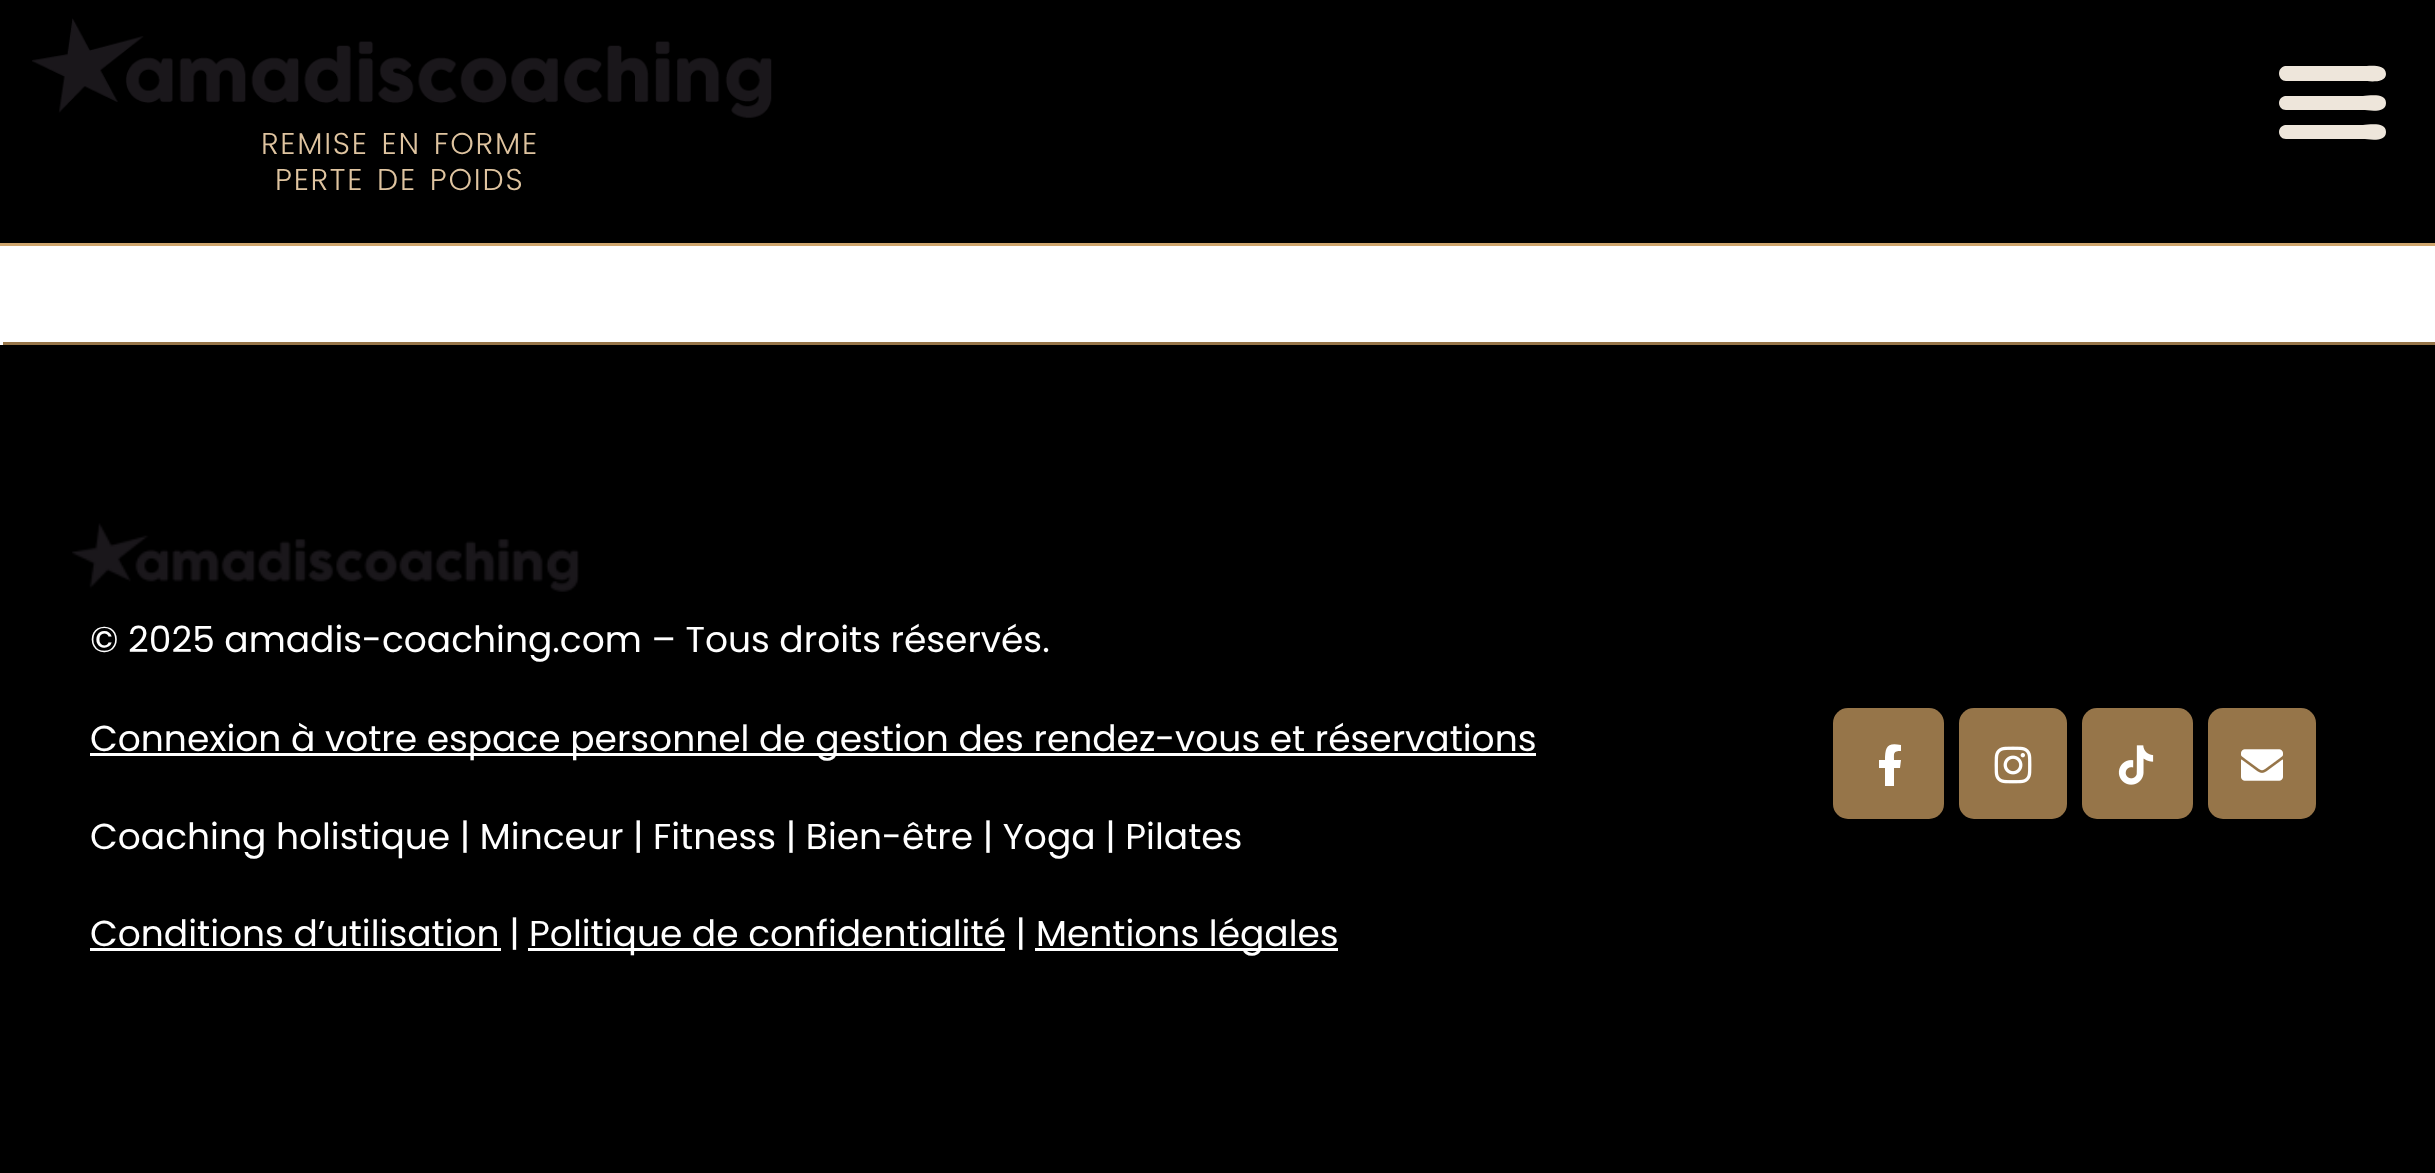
(async () => {
    const canvas = document.querySelector("canvas");
    canvas.width = 2435;
    canvas.height = 1173;
    const context = canvas.getContext("2d");
    context.miterLimit = 4;
    context.fontKerning = "normal";
    function write(s, x, y, font, color) {
        context.font = font;
        context.fillStyle = color;
        context.fillText(s, x, y);
    }
    function block(x, y, w, h, color) {
        context.fillStyle = color;
        context.fillRect(x, y, w, h);
    }
    function card(x, y, w, h, r, color) {
        context.fillStyle = color;
        context.beginPath();
        context.roundRect(x, y, w, h, r);
        context.fill();
    }
    async function photo(src, x, y, w, h) {
        const img = new Image();
        img.src = src;
        await img.decode();
        context.drawImage(img, x, y, w, h);
    }

    block(0, 0, 2435, 1173, "rgb(255, 255, 255)");
    block(0, 0, 2435, 243, "rgb(0, 0, 0)");
    block(0, 243, 2435, 3, "rgb(206, 165, 109)");
    context.fillStyle = "rgb(238, 230, 219)";
    context.beginPath();
    context.moveTo(2286, 81);
    context.lineTo(2363, 81);
    context.bezierCurveTo(2368, 81, 2386, 84, 2386, 74);
    context.bezierCurveTo(2386, 63, 2368, 66, 2363, 66);
    context.lineTo(2285, 66);
    context.bezierCurveTo(2276, 68, 2278, 81, 2286, 81);
    context.closePath();
    context.moveTo(2286, 110);
    context.lineTo(2363, 110);
    context.bezierCurveTo(2368, 110, 2386, 114, 2386, 103);
    context.bezierCurveTo(2386, 92, 2368, 96, 2363, 96);
    context.lineTo(2285, 96);
    context.bezierCurveTo(2276, 98, 2278, 110, 2286, 110);
    context.closePath();
    context.moveTo(2286, 139);
    context.lineTo(2363, 139);
    context.bezierCurveTo(2368, 139, 2386, 143, 2386, 132);
    context.bezierCurveTo(2386, 121, 2368, 125, 2363, 125);
    context.lineTo(2285, 125);
    context.bezierCurveTo(2276, 127, 2278, 139, 2286, 139);
    context.closePath();
    context.fill();
    await photo("media/1.png", 32, 18, 740, 100);
    context.letterSpacing = "1.75px";
    context.wordSpacing = "3px";
    write("REMISE EN FORME", 261, 154, "300 30px Poppins", "rgb(223, 196, 160)");
    write("PERTE DE POIDS", 275, 190, "300 30px Poppins", "rgb(223, 196, 160)");
    context.fillStyle = "rgb(0, 0, 0)";
    context.beginPath();
    context.moveTo(3, 345);
    context.lineTo(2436, 345);
    context.lineTo(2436, 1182);
    context.lineTo(0, 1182);
    context.lineTo(0, 345);
    context.closePath();
    context.fill();
    block(3, 342, 2432, 3, "rgb(150, 117, 73)");
    await photo("media/2.png", 72, 523, 507, 69);
    context.letterSpacing = "0px";
    context.wordSpacing = "0px";
    write("© 2025 amadis-coaching.com – Tous droits réservés.", 90, 652, "36px Poppins", "rgb(255, 255, 255)");
    block(90, 753, 1446, 3, "rgb(255, 255, 255)");
    write("Connexion à votre espace personnel de gestion des rendez-vous et réservations", 90, 751, "36px Poppins", "rgb(255, 255, 255)");
    write("Coaching holistique | Minceur | Fitness | Bien-être | Yoga | Pilates", 90, 849, "36px Poppins", "rgb(255, 255, 255)");
    block(90, 948, 411, 3, "rgb(255, 255, 255)");
    write("Conditions d’utilisation |", 90, 946, "36px Poppins", "rgb(255, 255, 255)");
    block(528, 948, 477, 3, "rgb(255, 255, 255)");
    write("Politique de confidentialité |", 529, 946, "36px Poppins", "rgb(255, 255, 255)");
    block(1035, 948, 303, 3, "rgb(255, 255, 255)");
    write("Mentions légales", 1036, 946, "36px Poppins", "rgb(255, 255, 255)");
    card(1833, 708, 111, 111, 15, "rgb(150, 117, 73)");
    context.fillStyle = "rgb(255, 255, 255)";
    context.beginPath();
    context.moveTo(1900, 768);
    context.lineTo(1901, 760);
    context.lineTo(1894, 760);
    context.bezierCurveTo(1894, 753, 1893, 751, 1901, 751);
    context.lineTo(1901, 745);
    context.bezierCurveTo(1887, 742, 1885, 747, 1885, 760);
    context.lineTo(1879, 760);
    context.lineTo(1879, 768);
    context.lineTo(1885, 768);
    context.lineTo(1885, 786);
    context.lineTo(1894, 786);
    context.lineTo(1894, 768);
    context.closePath();
    context.fill();
    card(1959, 708, 108, 111, 15, "rgb(150, 117, 73)");
    await photo("media/3.png", 1994, 746, 38, 38);
    card(2082, 708, 111, 111, 15, "rgb(150, 117, 73)");
    await photo("media/4.png", 2118, 745, 36, 40);
    card(2208, 708, 108, 111, 15, "rgb(150, 117, 73)");
    await photo("media/5.png", 2241, 749, 42, 32);
})();
